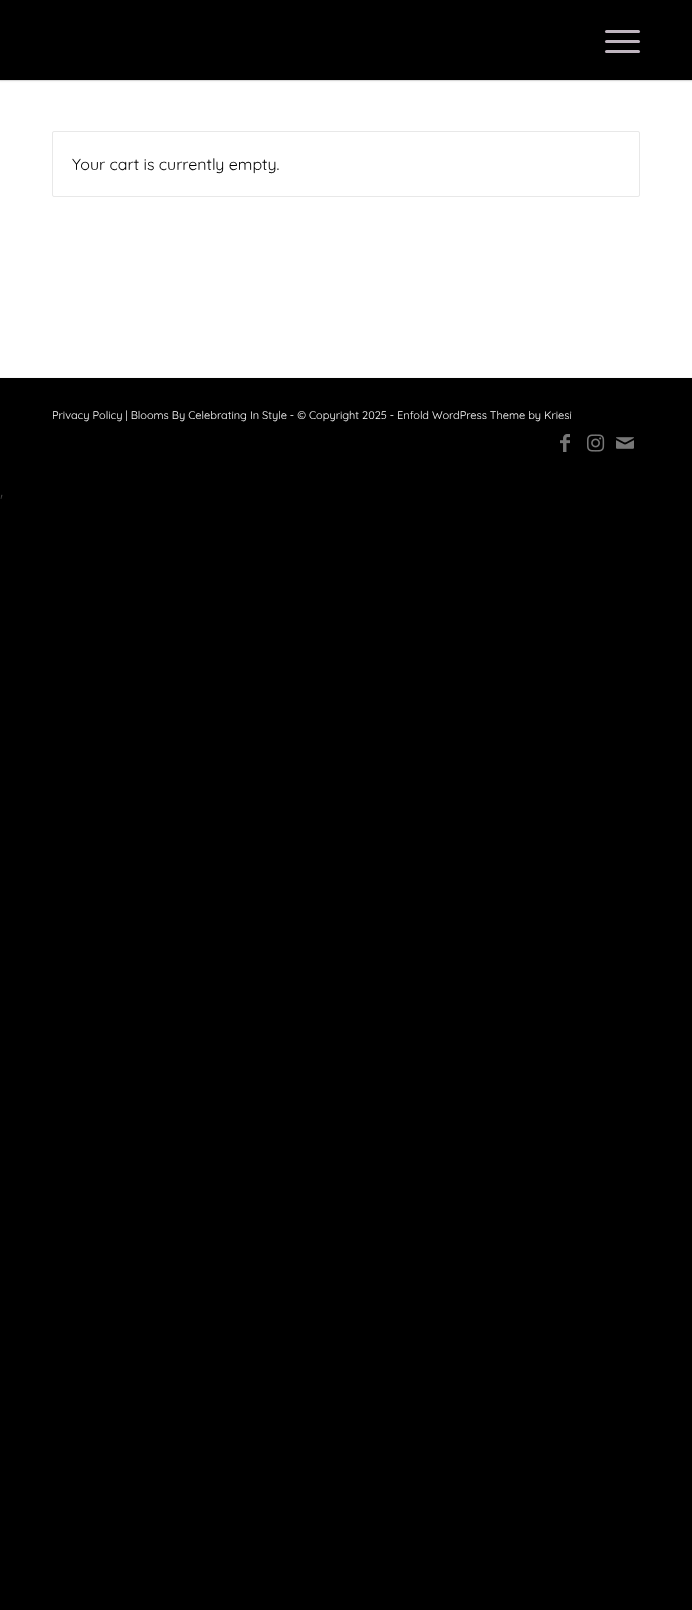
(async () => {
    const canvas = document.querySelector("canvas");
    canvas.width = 692;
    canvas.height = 1610;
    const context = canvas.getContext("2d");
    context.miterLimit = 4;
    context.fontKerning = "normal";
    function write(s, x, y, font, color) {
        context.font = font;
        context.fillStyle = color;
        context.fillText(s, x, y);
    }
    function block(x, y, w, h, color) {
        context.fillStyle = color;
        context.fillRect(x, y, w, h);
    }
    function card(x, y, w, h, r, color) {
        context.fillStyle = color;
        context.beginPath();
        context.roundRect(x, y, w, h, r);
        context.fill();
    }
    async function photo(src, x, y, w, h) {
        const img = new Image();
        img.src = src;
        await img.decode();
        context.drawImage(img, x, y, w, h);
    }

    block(0, 0, 692, 1610, "rgb(0, 0, 0)");
    block(0, 81, 692, 296, "rgb(255, 255, 255)");
    block(0, 80, 692, 1, "rgb(232, 232, 232)");
    context.fillStyle = "rgba(0, 0, 0, 0.1)";
    context.filter = "blur(1px)";
    context.beginPath();
    context.rect(-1, -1, 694, 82);
    context.fill();
    context.filter = "none";
    card(605, 40, 35, 3, 1.5, "rgb(191, 181, 191)");
    card(605, 30, 35, 3, 1.5, "rgb(191, 181, 191)");
    card(605, 50, 35, 3, 1.5, "rgb(191, 181, 191)");
    context.beginPath();
    context.roundRect(52.5, 131.5, 587, 65, 1.5);
    context.strokeStyle = "rgb(232, 232, 232)";
    context.stroke();
    write("Your cart is currently empty.", 72, 170, "16px Quicksand", "rgb(0, 0, 0)");
    block(0, 377, 692, 1, "rgb(248, 248, 248)");
    write("Privacy Policy | Blooms By Celebrating In Style - © Copyright 2025 - Enfold WordPress Theme by Kriesi", 52, 419, "11px Quicksand", "rgb(255, 255, 255)");
    await photo("media/1.png", 560, 434, 10, 18);
    await photo("media/2.png", 587, 434, 18, 18);
    await photo("media/3.png", 616, 437, 18, 12);
    write("'", 0, 506, "16px Quicksand", "rgb(68, 68, 68)");
})();
